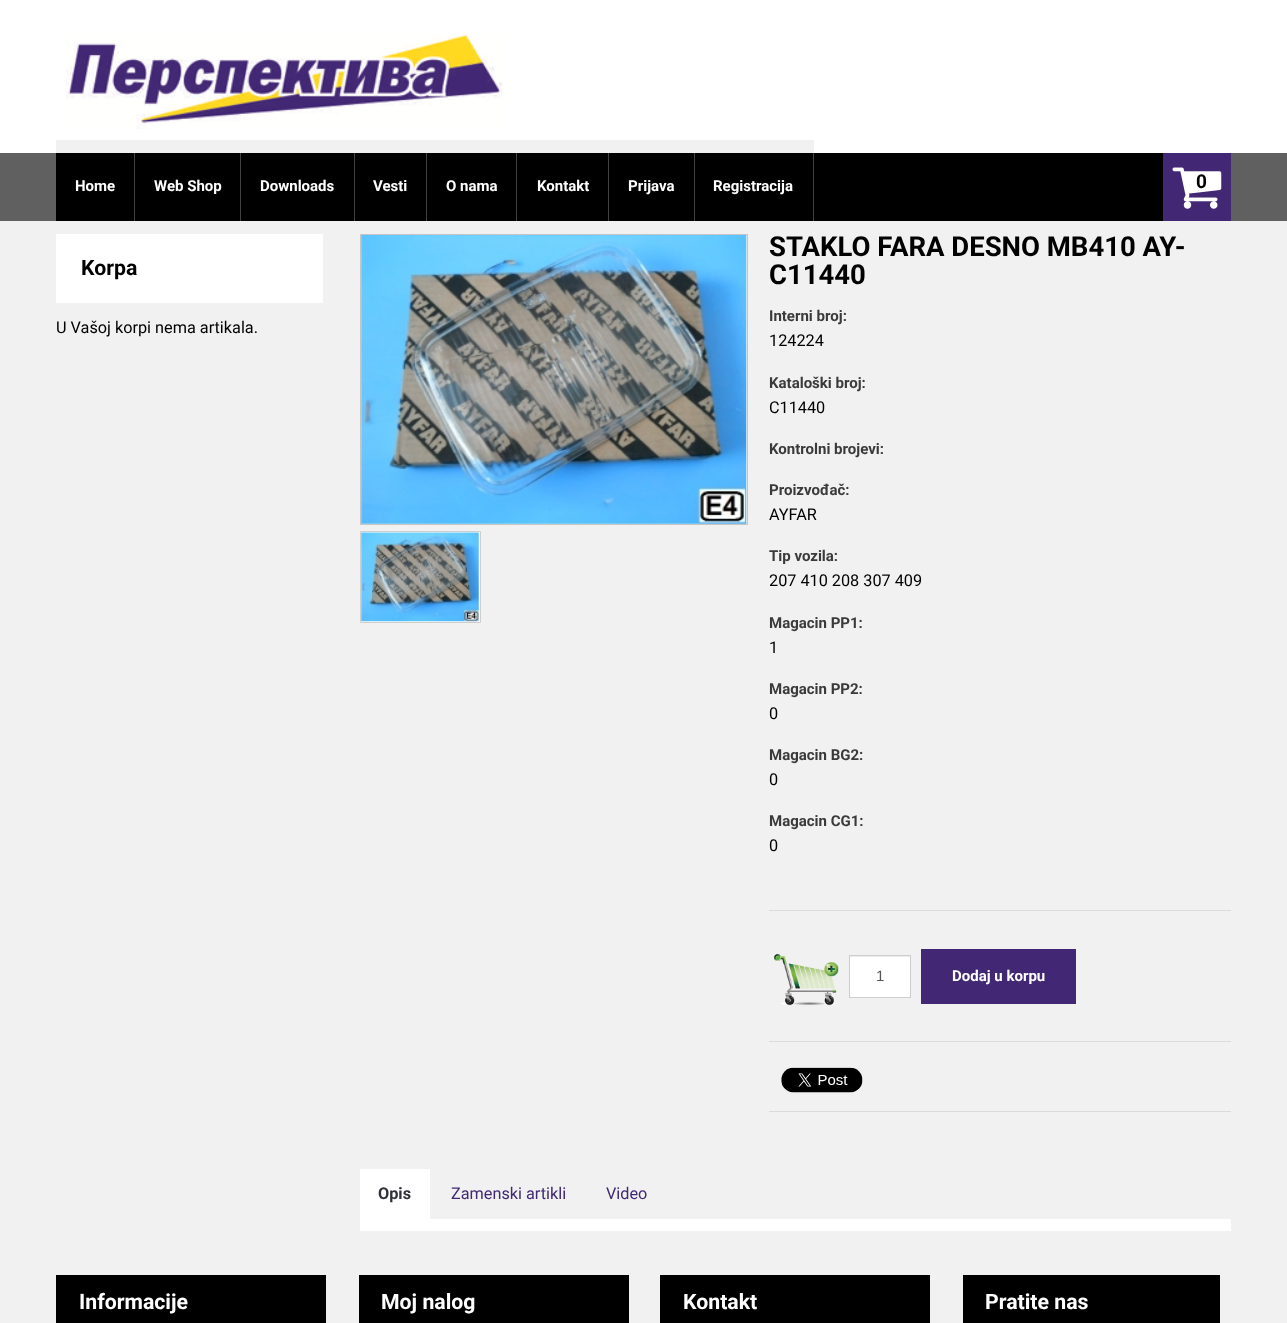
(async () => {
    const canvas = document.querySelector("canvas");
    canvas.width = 1287;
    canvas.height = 1323;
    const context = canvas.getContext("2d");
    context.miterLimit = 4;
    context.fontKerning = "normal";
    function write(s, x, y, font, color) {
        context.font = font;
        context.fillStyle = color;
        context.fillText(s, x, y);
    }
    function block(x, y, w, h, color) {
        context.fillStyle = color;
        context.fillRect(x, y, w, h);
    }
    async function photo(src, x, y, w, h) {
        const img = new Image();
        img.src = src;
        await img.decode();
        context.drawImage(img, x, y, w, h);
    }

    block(0, 0, 1287, 1323, "rgb(241, 241, 241)");
    block(0, 0, 1287, 153, "rgb(255, 255, 255)");
    await photo("media/1.png", 66, 34, 437, 96);
    block(0, 153, 1287, 68, "rgb(96, 96, 96)");
    block(56, 153, 1107, 68, "rgb(0, 0, 0)");
    block(56, 140, 758, 13, "rgb(241, 241, 241)");
    block(134, 153, 1, 68, "rgb(64, 64, 64)");
    write("Home", 75, 191, "bold 15px Roboto", "rgb(255, 255, 255)");
    block(240, 153, 1, 68, "rgb(64, 64, 64)");
    write("Web Shop", 154, 191, "bold 15px Roboto", "rgb(255, 255, 255)");
    block(354, 153, 1, 68, "rgb(64, 64, 64)");
    write("Downloads", 260, 191, "bold 15px Roboto", "rgb(255, 255, 255)");
    block(426, 153, 1, 68, "rgb(64, 64, 64)");
    write("Vesti", 373, 191, "bold 15px Roboto", "rgb(255, 255, 255)");
    block(516, 153, 1, 68, "rgb(64, 64, 64)");
    write("O nama", 446, 191, "bold 15px Roboto", "rgb(255, 255, 255)");
    block(608, 153, 1, 68, "rgb(64, 64, 64)");
    write("Kontakt", 537, 191, "bold 15px Roboto", "rgb(255, 255, 255)");
    block(694, 153, 1, 68, "rgb(64, 64, 64)");
    write("Prijava", 628, 191, "bold 15px Roboto", "rgb(255, 255, 255)");
    block(813, 153, 1, 68, "rgb(64, 64, 64)");
    write("Registracija", 713, 191, "bold 15px Roboto", "rgb(255, 255, 255)");
    block(1163, 153, 68, 68, "rgb(66, 40, 116)");
    await photo("media/2.png", 1172, 167, 50, 42);
    write("0", 1196, 188, "bold 19px Roboto", "rgb(0, 0, 0)");
    block(56, 234, 267, 69, "rgb(255, 255, 255)");
    write("Korpa", 81, 275, "bold 21.25px Roboto", "rgb(0, 0, 0)");
    write("U Vašoj korpi nema artikala.", 56, 333, "16.25px Roboto", "rgb(0, 0, 0)");
    context.strokeStyle = "rgb(198, 197, 197)";
    context.strokeRect(360.5, 234.5, 387, 290);
    await photo("media/3.png", 361, 235, 386, 289);
    context.fillStyle = "rgb(255, 255, 255)";
    context.beginPath();
    context.rect(360.5, 531.5, 120, 91);
    context.fill();
    context.strokeStyle = "rgb(206, 206, 206)";
    context.stroke();
    await photo("media/4.png", 361, 532, 118, 90);
    write("STAKLO FARA DESNO MB410 AY-", 769, 256, "bold 27.5px Roboto", "rgb(0, 0, 0)");
    write("C11440", 769, 284, "bold 27.5px Roboto", "rgb(0, 0, 0)");
    write("Interni broj:", 769, 321, "bold 15px Roboto", "rgb(58, 58, 58)");
    write("124224", 769, 346, "16.25px Roboto", "rgb(0, 0, 0)");
    write("Kataloški broj:", 769, 388, "bold 15px Roboto", "rgb(58, 58, 58)");
    write("C11440", 769, 413, "16.25px Roboto", "rgb(0, 0, 0)");
    write("Kontrolni brojevi:", 769, 454, "bold 15px Roboto", "rgb(58, 58, 58)");
    write("Proizvođač:", 769, 495, "bold 15px Roboto", "rgb(58, 58, 58)");
    write("AYFAR", 769, 520, "16.25px Roboto", "rgb(0, 0, 0)");
    write("Tip vozila:", 769, 561, "bold 15px Roboto", "rgb(58, 58, 58)");
    write("207 410 208 307 409", 769, 586, "16.25px Roboto", "rgb(0, 0, 0)");
    write("Magacin PP1:", 769, 628, "bold 15px Roboto", "rgb(58, 58, 58)");
    write("1", 769, 653, "16.25px Roboto", "rgb(0, 0, 0)");
    write("Magacin PP2:", 769, 694, "bold 15px Roboto", "rgb(58, 58, 58)");
    write("0", 769, 719, "16.25px Roboto", "rgb(0, 0, 0)");
    write("Magacin BG2:", 769, 760, "bold 15px Roboto", "rgb(58, 58, 58)");
    write("0", 769, 785, "16.25px Roboto", "rgb(0, 0, 0)");
    write("Magacin CG1:", 769, 826, "bold 15px Roboto", "rgb(58, 58, 58)");
    write("0", 769, 851, "16.25px Roboto", "rgb(0, 0, 0)");
    block(769, 1041, 462, 1, "rgb(219, 219, 219)");
    block(769, 910, 462, 1, "rgb(219, 219, 219)");
    await photo("media/5.png", 774, 954, 65, 52);
    block(850, 957, 60, 40, "rgb(255, 255, 255)");
    block(850, 956, 60, 1, "rgb(236, 236, 236)");
    context.strokeRect(849.5, 955.5, 61, 42);
    write("1", 876, 981, "15px Liberation Sans", "rgb(85, 85, 85)");
    block(921, 949, 155, 55, "rgb(66, 40, 116)");
    write("Dodaj u korpu", 952, 981, "bold 15px Roboto", "rgb(255, 255, 255)");
    block(769, 1111, 462, 1, "rgb(219, 219, 219)");
    await photo("media/6.png", 781, 1067, 82, 26);
    block(360, 1169, 70, 50, "rgb(255, 255, 255)");
    write("Opis", 378, 1199, "bold 16.25px Roboto", "rgb(48, 48, 56)");
    write("Zamenski artikli", 451, 1199, "16.25px Roboto", "rgb(66, 40, 116)");
    write("Video", 606, 1199, "16.25px Roboto", "rgb(66, 40, 116)");
    block(360, 1219, 871, 12, "rgb(255, 255, 255)");
    block(56, 1275, 270, 48, "rgb(0, 0, 0)");
    write("Informacije", 79, 1309, "bold 21.25px Roboto", "rgb(255, 255, 255)");
    block(359, 1275, 270, 48, "rgb(0, 0, 0)");
    write("Moj nalog", 381, 1309, "bold 21.25px Roboto", "rgb(255, 255, 255)");
    block(660, 1275, 270, 48, "rgb(0, 0, 0)");
    write("Kontakt", 683, 1309, "bold 21.25px Roboto", "rgb(255, 255, 255)");
    block(963, 1275, 257, 48, "rgb(0, 0, 0)");
    write("Pratite nas", 985, 1309, "bold 21.25px Roboto", "rgb(255, 255, 255)");
})();
